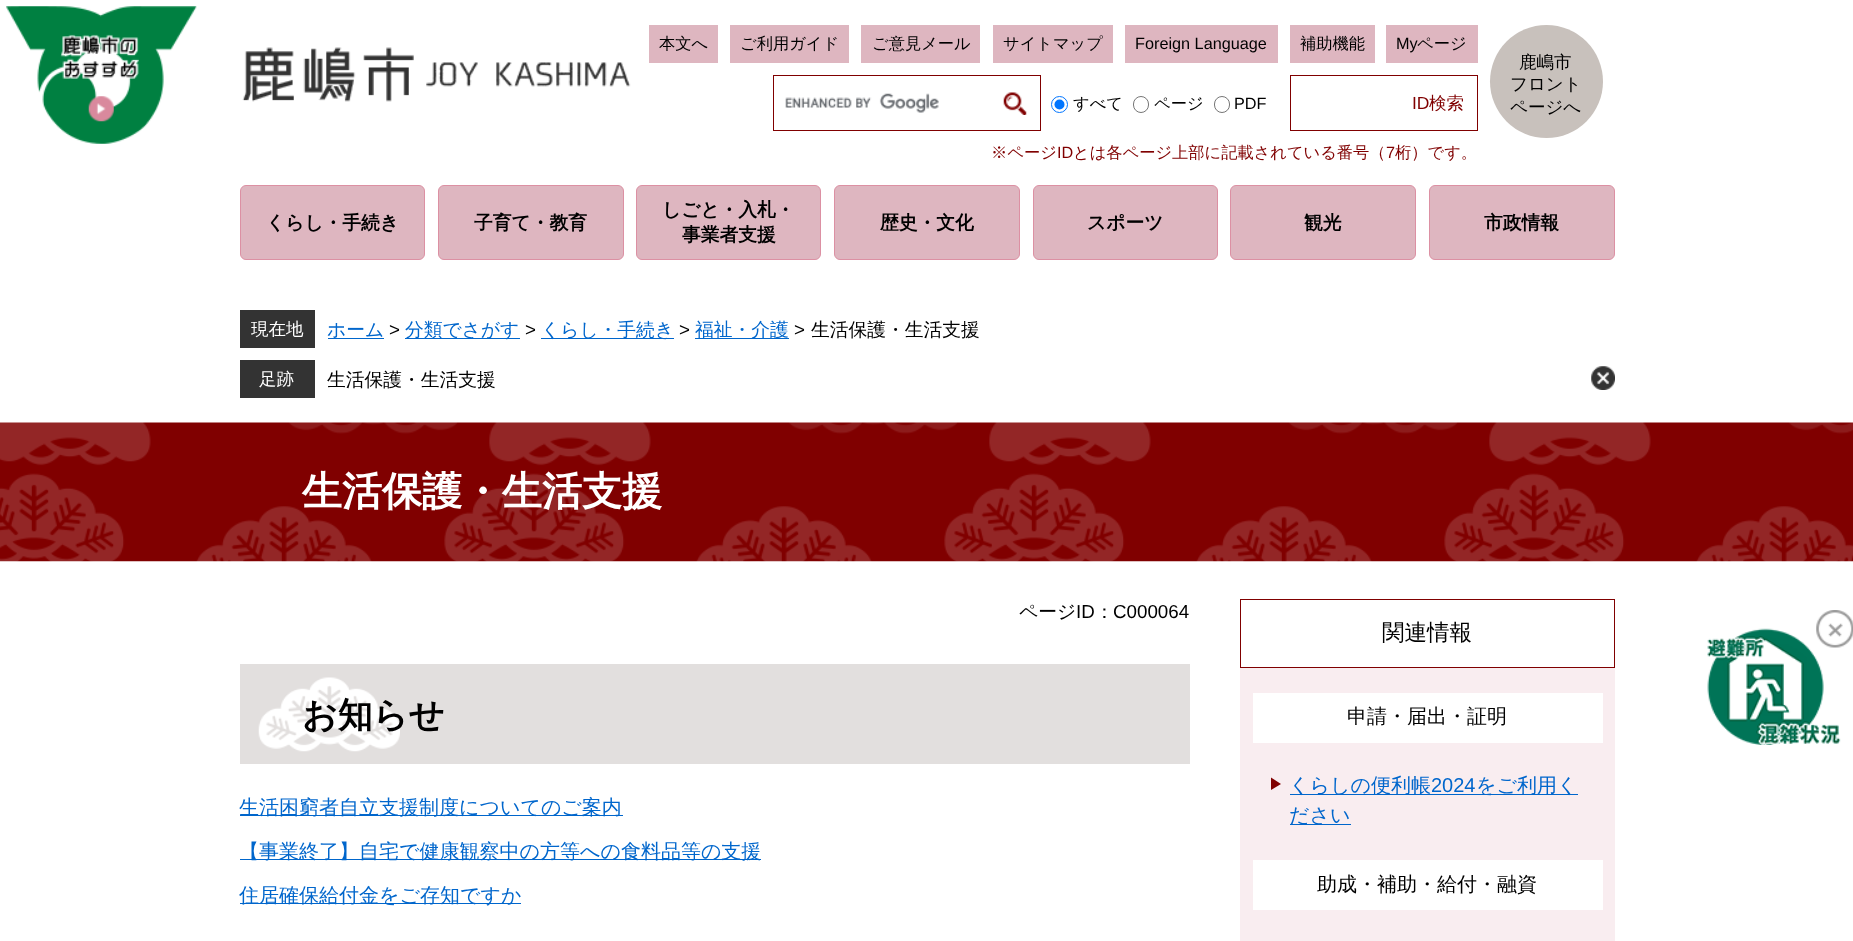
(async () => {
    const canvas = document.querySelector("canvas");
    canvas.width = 1853;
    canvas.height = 941;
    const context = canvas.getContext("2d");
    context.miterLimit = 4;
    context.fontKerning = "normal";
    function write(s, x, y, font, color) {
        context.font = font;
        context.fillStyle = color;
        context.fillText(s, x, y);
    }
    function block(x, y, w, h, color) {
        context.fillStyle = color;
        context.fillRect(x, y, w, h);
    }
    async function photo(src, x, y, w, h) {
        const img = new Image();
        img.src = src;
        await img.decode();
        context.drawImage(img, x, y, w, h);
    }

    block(0, 0, 1853, 941, "rgb(255, 255, 255)");
    await photo("media/1.png", 6, 6, 191, 138);
    await photo("media/2.png", 88, 96, 26, 26);
    await photo("media/3.png", 242, 47, 389, 55);
    block(649, 25, 69, 38, "rgb(222, 182, 192)");
    write("本文へ", 659, 49, "500 16.25px WenQuanYi Zen Hei", "rgb(0, 0, 0)");
    block(730, 25, 119, 38, "rgb(222, 182, 192)");
    write("ご利用ガイド", 740, 49, "500 16.25px WenQuanYi Zen Hei", "rgb(0, 0, 0)");
    block(861, 25, 119, 38, "rgb(222, 182, 192)");
    write("ご意見メール", 872, 49, "500 16.25px WenQuanYi Zen Hei", "rgb(0, 0, 0)");
    block(993, 25, 120, 38, "rgb(222, 182, 192)");
    write("サイトマップ", 1003, 49, "500 16.25px WenQuanYi Zen Hei", "rgb(0, 0, 0)");
    block(1125, 25, 153, 38, "rgb(222, 182, 192)");
    write("Foreign Language", 1135, 49, "16.25px Liberation Sans", "rgb(0, 0, 0)");
    block(1290, 25, 85, 38, "rgb(222, 182, 192)");
    write("補助機能", 1300, 49, "500 16.25px WenQuanYi Zen Hei", "rgb(0, 0, 0)");
    block(1386, 25, 92, 38, "rgb(222, 182, 192)");
    write("My", 1396, 49, "16.25px Liberation Sans", "rgb(0, 0, 0)");
    write("ページ", 1417, 49, "500 16.25px WenQuanYi Zen Hei", "rgb(0, 0, 0)");
    context.strokeStyle = "rgb(128, 0, 0)";
    context.strokeRect(1290.5, 75.5, 187, 55);
    write("ID", 1412, 109, "17.5px Liberation Sans", "rgb(128, 0, 0)");
    write("検索", 1429, 109, "500 17.5px WenQuanYi Zen Hei", "rgb(128, 0, 0)");
    write("※ページ", 991, 158, "500 16.25px WenQuanYi Zen Hei", "rgb(128, 0, 0)");
    write("ID", 1057, 158, "16.25px Liberation Sans", "rgb(128, 0, 0)");
    write("とは各ページ上部に記載されている番号（", 1073, 158, "500 16.25px WenQuanYi Zen Hei", "rgb(128, 0, 0)");
    write("7", 1386, 158, "16.25px Liberation Sans", "rgb(128, 0, 0)");
    write("桁）です。", 1395, 158, "500 16.25px WenQuanYi Zen Hei", "rgb(128, 0, 0)");
    context.strokeRect(773.5, 75.5, 267, 55);
    await photo("media/4.png", 785, 93, 154, 20);
    await photo("media/5.png", 1003, 92, 24, 23);
    context.beginPath();
    context.arc(1059.5, 104.5, 8, 0, Math.PI * 2);
    context.strokeStyle = "rgb(0, 117, 255)";
    context.stroke();
    context.fillStyle = "rgb(0, 117, 255)";
    context.beginPath();
    context.arc(1059.5, 104.5, 5, 0, Math.PI * 2);
    context.fill();
    write("すべて", 1073, 109, "500 16.25px WenQuanYi Zen Hei", "rgb(0, 0, 0)");
    context.beginPath();
    context.roundRect(1133.5, 96.5, 15, 16, 7.5);
    context.strokeStyle = "rgb(118, 118, 118)";
    context.stroke();
    write("ページ", 1154, 109, "500 16.25px WenQuanYi Zen Hei", "rgb(0, 0, 0)");
    context.beginPath();
    context.roundRect(1214.5, 96.5, 15, 16, 7.5);
    context.stroke();
    write("PDF", 1234, 109, "16.25px Liberation Sans", "rgb(0, 0, 0)");
    context.fillStyle = "rgb(200, 193, 188)";
    context.beginPath();
    context.arc(1546.5, 81.5, 56.5, 0, Math.PI * 2);
    context.fill();
    write("鹿嶋市", 1519, 68, "500 17.5px WenQuanYi Zen Hei", "rgb(0, 0, 0)");
    write("フロント", 1510, 90, "500 17.5px WenQuanYi Zen Hei", "rgb(0, 0, 0)");
    write("ページへ", 1510, 113, "500 17.5px WenQuanYi Zen Hei", "rgb(0, 0, 0)");
    context.fillStyle = "rgb(222, 182, 192)";
    context.beginPath();
    context.roundRect(240.5, 185.5, 184, 74, 5.5);
    context.fill();
    context.strokeStyle = "rgb(220, 144, 163)";
    context.stroke();
    write("くらし・手続き", 266, 229, "bold 18.75px WenQuanYi Zen Hei", "rgb(0, 0, 0)");
    context.fillStyle = "rgb(222, 182, 192)";
    context.beginPath();
    context.roundRect(438.5, 185.5, 185, 74, 5.5);
    context.fill();
    context.stroke();
    write("子育て・教育", 474, 229, "bold 18.75px WenQuanYi Zen Hei", "rgb(0, 0, 0)");
    context.fillStyle = "rgb(222, 182, 192)";
    context.beginPath();
    context.roundRect(636.5, 185.5, 184, 74, 5.5);
    context.fill();
    context.stroke();
    write("しごと・入札・", 662, 216, "bold 18.75px WenQuanYi Zen Hei", "rgb(0, 0, 0)");
    write("事業者支援", 682, 241, "bold 18.75px WenQuanYi Zen Hei", "rgb(0, 0, 0)");
    context.fillStyle = "rgb(222, 182, 192)";
    context.beginPath();
    context.roundRect(834.5, 185.5, 185, 74, 5.5);
    context.fill();
    context.stroke();
    write("歴史・文化", 880, 229, "bold 18.75px WenQuanYi Zen Hei", "rgb(0, 0, 0)");
    context.fillStyle = "rgb(222, 182, 192)";
    context.beginPath();
    context.roundRect(1033.5, 185.5, 184, 74, 5.5);
    context.fill();
    context.stroke();
    write("スポーツ", 1087, 229, "bold 18.75px WenQuanYi Zen Hei", "rgb(0, 0, 0)");
    context.fillStyle = "rgb(222, 182, 192)";
    context.beginPath();
    context.roundRect(1230.5, 185.5, 185, 74, 5.5);
    context.fill();
    context.stroke();
    write("観光", 1304, 229, "bold 18.75px WenQuanYi Zen Hei", "rgb(0, 0, 0)");
    context.fillStyle = "rgb(222, 182, 192)";
    context.beginPath();
    context.roundRect(1429.5, 185.5, 185, 74, 5.5);
    context.fill();
    context.stroke();
    write("市政情報", 1484, 229, "bold 18.75px WenQuanYi Zen Hei", "rgb(0, 0, 0)");
    block(240, 310, 75, 38, "rgb(51, 51, 51)");
    write("現在地", 251, 335, "500 17.5px WenQuanYi Zen Hei", "rgb(255, 255, 255)");
    write("ホーム", 327, 336, "500 18.75px WenQuanYi Zen Hei", "rgb(0, 102, 204)");
    block(328, 338, 56, 1, "rgb(0, 102, 204)");
    write(">", 389, 336, "18.75px Liberation Sans", "rgb(0, 0, 0)");
    block(405, 338, 115, 1, "rgb(0, 102, 204)");
    write("分類でさがす", 405, 336, "500 18.75px WenQuanYi Zen Hei", "rgb(0, 102, 204)");
    write(">", 525, 336, "18.75px Liberation Sans", "rgb(0, 0, 0)");
    block(541, 338, 133, 1, "rgb(0, 102, 204)");
    write("くらし・手続き", 541, 336, "500 18.75px WenQuanYi Zen Hei", "rgb(0, 102, 204)");
    write(">", 679, 336, "18.75px Liberation Sans", "rgb(0, 0, 0)");
    block(695, 338, 94, 1, "rgb(0, 102, 204)");
    write("福祉・介護", 695, 336, "500 18.75px WenQuanYi Zen Hei", "rgb(0, 102, 204)");
    write(">", 794, 336, "18.75px Liberation Sans", "rgb(0, 0, 0)");
    write("生活保護・生活支援", 811, 336, "500 18.75px WenQuanYi Zen Hei", "rgb(0, 0, 0)");
    block(240, 360, 75, 38, "rgb(51, 51, 51)");
    write("足跡", 259, 385, "500 17.5px WenQuanYi Zen Hei", "rgb(255, 255, 255)");
    write("生活保護・生活支援", 327, 386, "500 18.75px WenQuanYi Zen Hei", "rgb(0, 0, 0)");
    await photo("media/6.png", 1591, 366, 24, 24);
    await photo("media/7.png", 0, 422, 1853, 140);
    write("生活保護・生活支援", 302, 505, "bold 40px WenQuanYi Zen Hei", "rgb(255, 255, 255)");
    write("ページ", 1019, 618, "500 18.75px WenQuanYi Zen Hei", "rgb(0, 0, 0)");
    write("ID", 1076, 618, "18.75px Liberation Sans", "rgb(0, 0, 0)");
    write("：", 1095, 618, "500 18.75px WenQuanYi Zen Hei", "rgb(0, 0, 0)");
    write("C000064", 1113, 618, "18.75px Liberation Sans", "rgb(0, 0, 0)");
    block(240, 664, 950, 100, "rgb(226, 223, 222)");
    await photo("media/8.png", 258, 677, 142, 75);
    write("お知らせ", 302, 727, "bold 35px WenQuanYi Zen Hei", "rgb(0, 0, 0)");
    block(240, 815, 383, 1, "rgb(0, 102, 204)");
    write("生活困窮者自立支援制度についてのご案内", 239, 814, "500 20px WenQuanYi Zen Hei", "rgb(0, 102, 204)");
    block(240, 859, 521, 1, "rgb(0, 102, 204)");
    write("【事業終了】自宅で健康観察中の方等への食料品等の支援", 239, 858, "500 20px WenQuanYi Zen Hei", "rgb(0, 102, 204)");
    block(240, 903, 281, 1, "rgb(0, 102, 204)");
    write("住居確保給付金をご存知ですか", 239, 902, "500 20px WenQuanYi Zen Hei", "rgb(0, 102, 204)");
    block(1240, 668, 375, 273, "rgb(249, 237, 240)");
    context.strokeStyle = "rgb(128, 0, 0)";
    context.strokeRect(1240.5, 599.5, 374, 68);
    write("関連情報", 1382, 640, "500 22.5px WenQuanYi Zen Hei", "rgb(0, 0, 0)");
    block(1253, 693, 350, 50, "rgb(255, 255, 255)");
    write("申請・届出・証明", 1347, 723, "500 20px WenQuanYi Zen Hei", "rgb(0, 0, 0)");
    context.fillStyle = "rgb(128, 0, 0)";
    context.beginPath();
    context.moveTo(1271, 790);
    context.lineTo(1271, 777.5);
    context.lineTo(1281, 784);
    context.closePath();
    context.fill();
    block(1290, 794, 288, 1, "rgb(0, 102, 204)");
    write("くらしの便利帳", 1289, 792, "500 20px WenQuanYi Zen Hei", "rgb(0, 102, 204)");
    write("2024", 1431, 792, "20px Liberation Sans", "rgb(0, 102, 204)");
    write("をご利用く", 1476, 792, "500 20px WenQuanYi Zen Hei", "rgb(0, 102, 204)");
    block(1290, 824, 61, 1, "rgb(0, 102, 204)");
    write("ださい", 1289, 822, "500 20px WenQuanYi Zen Hei", "rgb(0, 102, 204)");
    block(1253, 860, 350, 50, "rgb(255, 255, 255)");
    write("助成・補助・給付・融資", 1317, 891, "500 20px WenQuanYi Zen Hei", "rgb(0, 0, 0)");
    await photo("media/10.png", 1707, 628, 134, 117);
    await photo("media/9.png", 1816, 610, 37, 38);
})();
